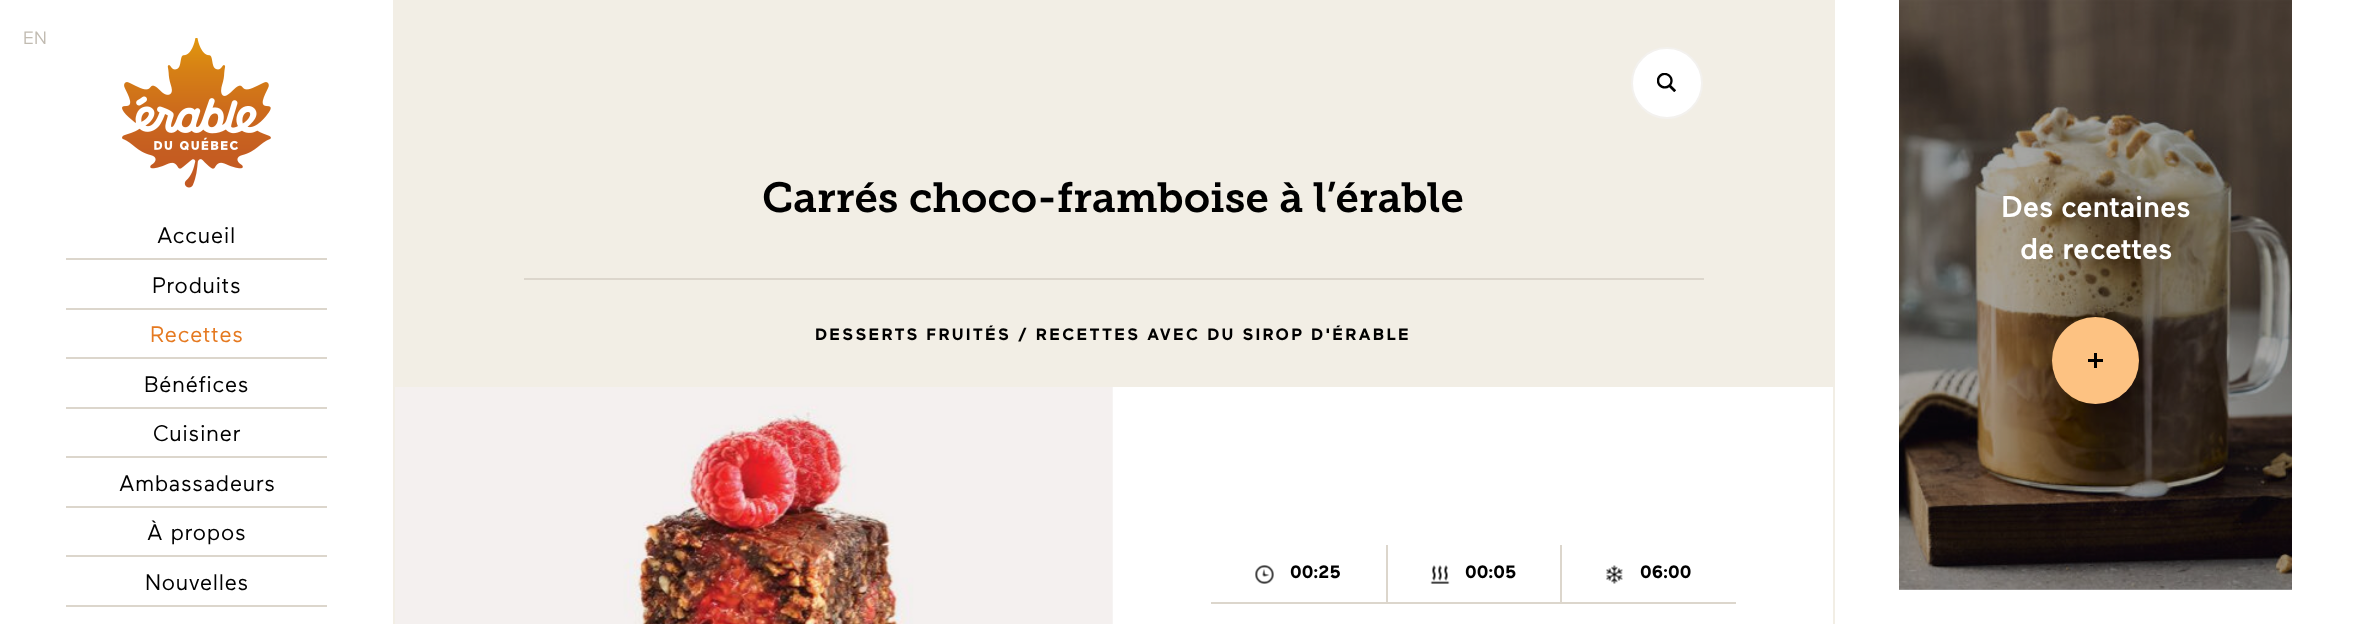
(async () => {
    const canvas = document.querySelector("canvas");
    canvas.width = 2357;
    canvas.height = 624;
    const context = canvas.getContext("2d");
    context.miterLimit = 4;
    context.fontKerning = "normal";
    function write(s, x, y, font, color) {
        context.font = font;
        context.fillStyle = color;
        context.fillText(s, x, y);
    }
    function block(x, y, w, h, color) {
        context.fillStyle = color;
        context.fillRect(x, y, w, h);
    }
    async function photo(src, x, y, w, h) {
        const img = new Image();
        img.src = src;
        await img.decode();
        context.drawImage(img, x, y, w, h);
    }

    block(0, 0, 2357, 624, "rgb(242, 238, 229)");
    block(0, 0, 393, 624, "rgb(255, 255, 255)");
    write("EN", 23, 44, "18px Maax", "rgb(193, 187, 177)");
    await photo("media/1.png", 122, 38, 149, 150);
    block(66, 258, 261, 2, "rgb(220, 214, 204)");
    context.letterSpacing = "0.5px";
    write("Accueil", 157, 243, "22.5px Maax", "rgb(0, 0, 0)");
    block(66, 308, 261, 2, "rgb(220, 214, 204)");
    write("Produits", 152, 293, "22.5px Maax", "rgb(0, 0, 0)");
    block(66, 357, 261, 2, "rgb(220, 214, 204)");
    write("Recettes", 150, 342, "22.5px Maax", "rgb(229, 121, 32)");
    block(66, 407, 261, 2, "rgb(220, 214, 204)");
    write("Bénéfices", 144, 392, "22.5px Maax", "rgb(0, 0, 0)");
    block(66, 456, 261, 2, "rgb(220, 214, 204)");
    write("Cuisiner", 153, 441, "22.5px Maax", "rgb(0, 0, 0)");
    block(66, 506, 261, 2, "rgb(220, 214, 204)");
    write("Ambassadeurs", 119, 491, "22.5px Maax", "rgb(0, 0, 0)");
    block(66, 555, 261, 2, "rgb(220, 214, 204)");
    write("À propos", 147, 540, "22.5px Maax", "rgb(0, 0, 0)");
    block(66, 605, 261, 2, "rgb(220, 214, 204)");
    write("Nouvelles", 145, 590, "22.5px Maax", "rgb(0, 0, 0)");
    context.fillStyle = "rgb(255, 255, 255)";
    context.beginPath();
    context.arc(1667, 83, 35, 0, Math.PI * 2);
    context.fill();
    context.strokeStyle = "rgb(243, 241, 238)";
    context.lineWidth = 2;
    context.stroke();
    await photo("media/2.png", 1657, 73, 19, 19);
    context.letterSpacing = "0px";
    write("Carrés choco-framboise à l’érable", 762, 212, "600 42px 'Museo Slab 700'", "rgb(0, 0, 0)");
    block(524, 278, 1180, 2, "rgb(220, 214, 204)");
    context.letterSpacing = "2.25px";
    write("DESSERTS FRUITÉS / RECETTES AVEC DU SIROP D'ÉRABLE", 815, 340, "bold 16.5px Maax", "rgb(0, 0, 0)");
    block(1112, 387, 721, 237, "rgb(255, 255, 255)");
    await photo("media/3.png", 395, 387, 718, 237);
    block(1211, 602, 525, 2, "rgb(220, 214, 204)");
    await photo("media/4.png", 1255, 565, 19, 19);
    context.letterSpacing = "0px";
    write("00:25", 1290, 578, "bold 18px Maax", "rgb(0, 0, 0)");
    block(1386, 545, 2, 57, "rgb(220, 214, 204)");
    await photo("media/5.png", 1430, 565, 20, 19);
    write("00:05", 1465, 578, "bold 18px Maax", "rgb(0, 0, 0)");
    block(1560, 545, 2, 57, "rgb(220, 214, 204)");
    await photo("media/6.png", 1606, 565, 17, 19);
    write("06:00", 1640, 578, "bold 18px Maax", "rgb(0, 0, 0)");
    block(1835, 0, 522, 624, "rgb(255, 255, 255)");
    block(1899, 589, 393, 1, "rgb(166, 166, 166)");
    await photo("media/7.png", 1899, 0, 393, 590);
    write("Des centaines", 2001, 217, "500 30px Maax", "rgb(255, 255, 255)");
    write("de recettes", 2020, 259, "500 30px Maax", "rgb(255, 255, 255)");
    context.fillStyle = "rgb(253, 194, 130)";
    context.beginPath();
    context.arc(2095.5, 360.5, 43.5, 0, Math.PI * 2);
    context.fill();
    block(2088, 359, 15, 3, "rgb(0, 0, 0)");
    block(2094, 353, 3, 15, "rgb(0, 0, 0)");
})();
